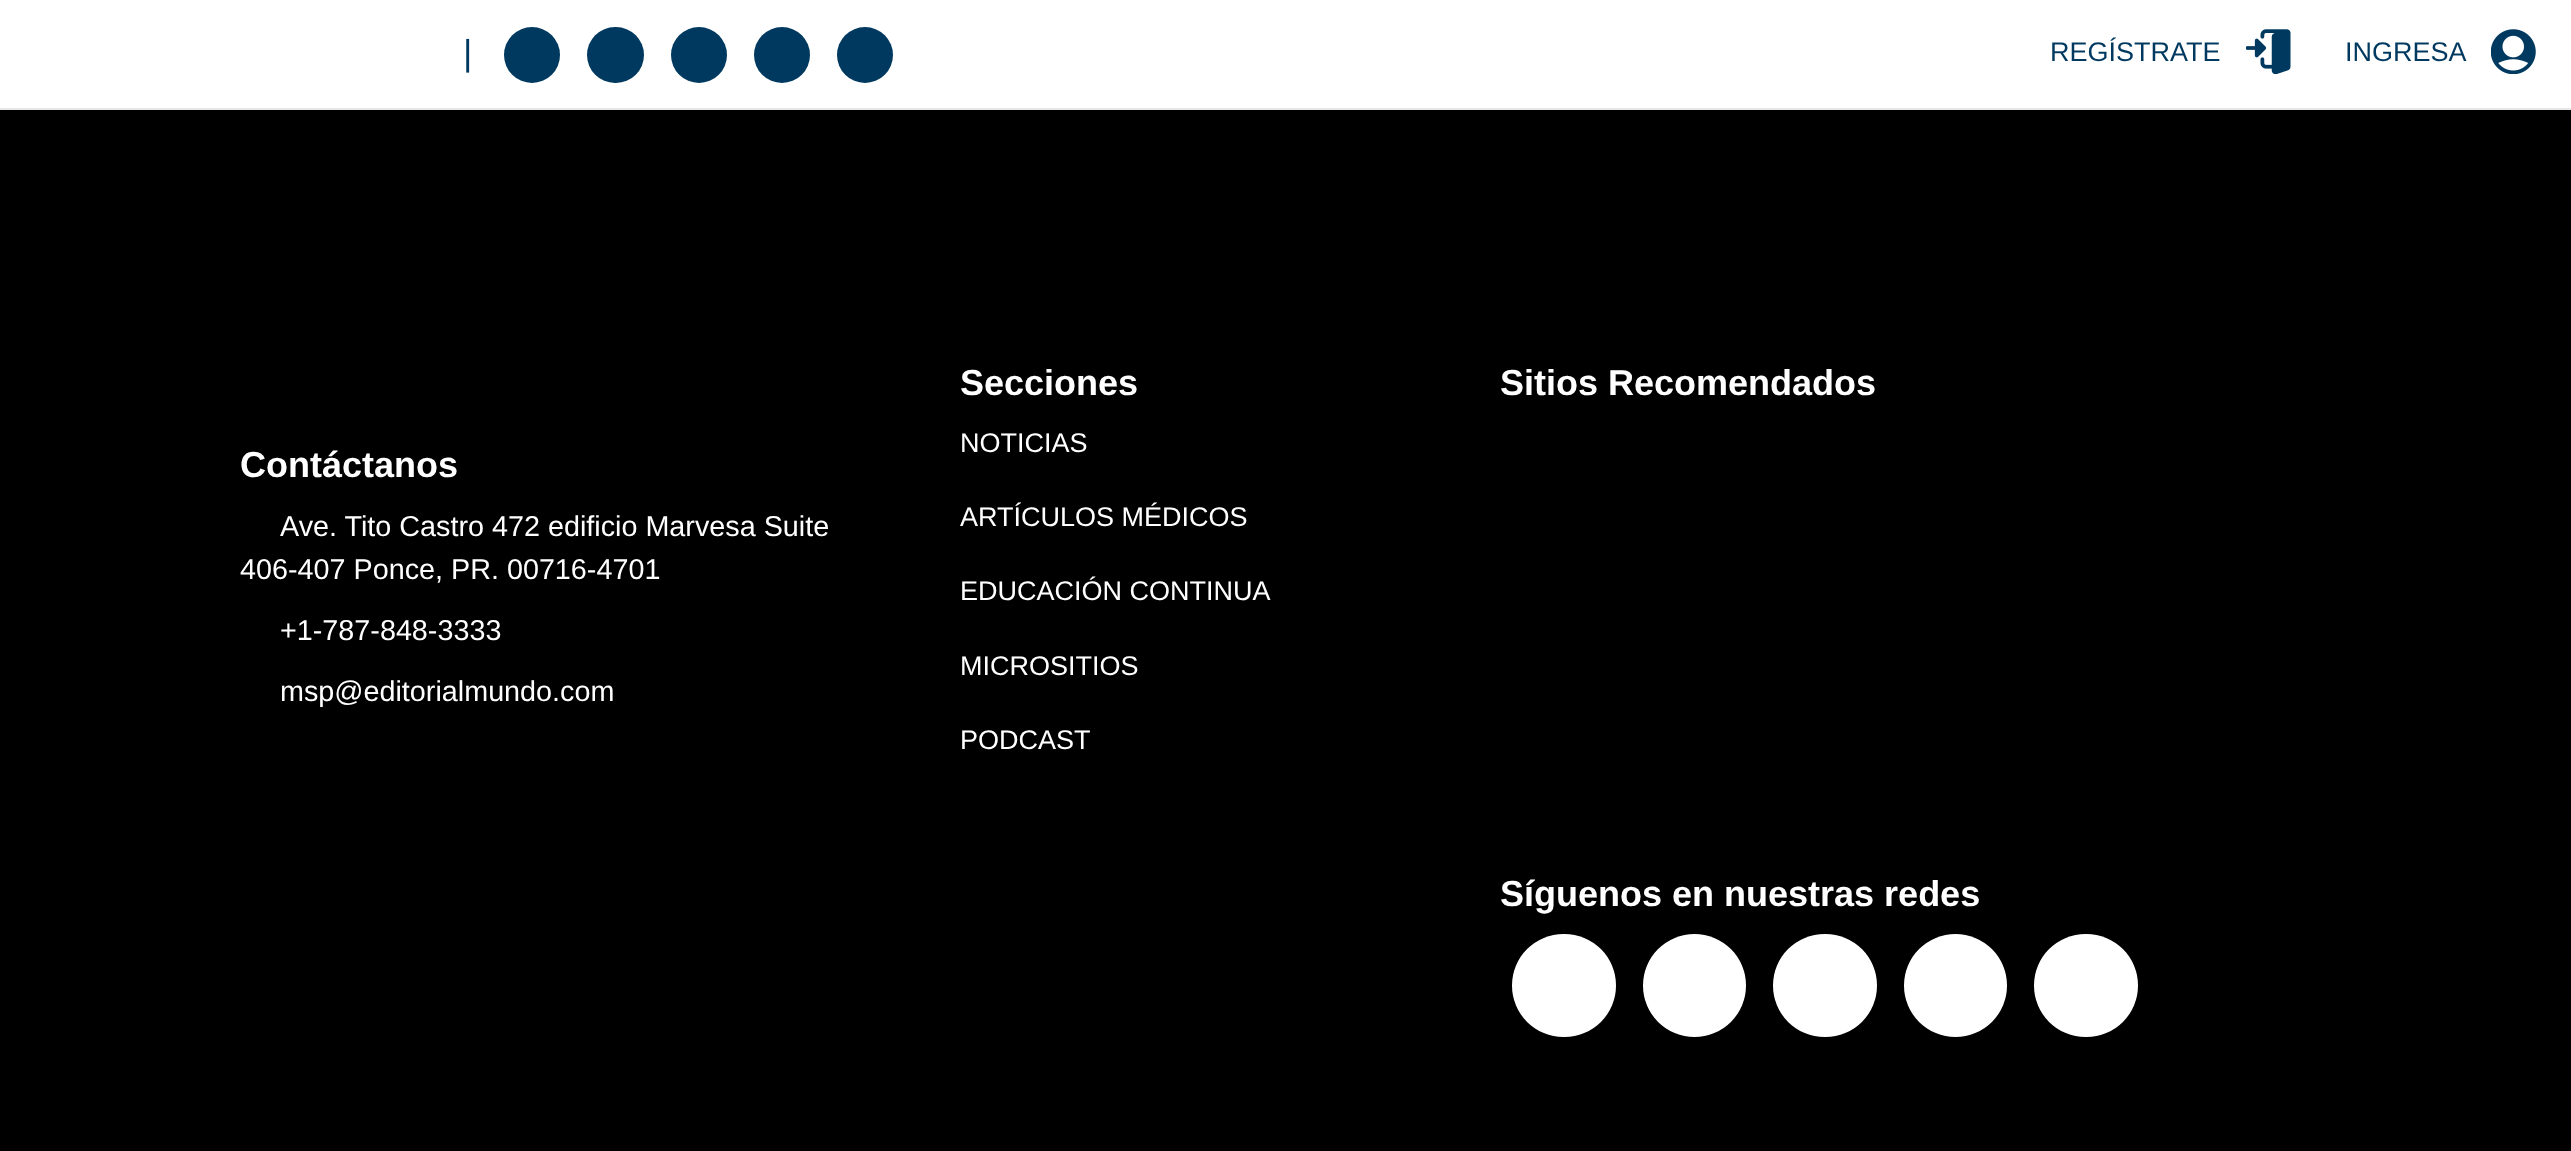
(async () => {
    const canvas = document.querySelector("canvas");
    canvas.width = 2571;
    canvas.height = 1151;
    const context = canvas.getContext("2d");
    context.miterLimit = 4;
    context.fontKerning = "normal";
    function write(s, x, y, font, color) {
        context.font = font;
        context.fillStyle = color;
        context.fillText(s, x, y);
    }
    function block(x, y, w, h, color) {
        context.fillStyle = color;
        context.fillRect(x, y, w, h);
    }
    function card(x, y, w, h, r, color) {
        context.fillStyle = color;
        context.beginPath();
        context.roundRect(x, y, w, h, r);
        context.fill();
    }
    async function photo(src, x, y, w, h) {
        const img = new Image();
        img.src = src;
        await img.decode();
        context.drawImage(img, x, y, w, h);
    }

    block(0, 0, 2571, 1151, "rgb(0, 0, 0)");
    block(0, 0, 2571, 108, "rgb(255, 255, 255)");
    block(0, 108, 2571, 2, "rgb(230, 230, 230)");
    write("|", 463, 65, "36px Liberation Sans", "rgb(0, 57, 95)");
    context.beginPath();
    context.arc(532, 55, 28, 0, Math.PI * 2);
    context.fill();
    card(587, 27, 57, 56, 28, "rgb(0, 57, 95)");
    context.beginPath();
    context.arc(699, 55, 28, 0, Math.PI * 2);
    context.fill();
    context.beginPath();
    context.arc(782, 55, 28, 0, Math.PI * 2);
    context.fill();
    context.beginPath();
    context.arc(865, 55, 28, 0, Math.PI * 2);
    context.fill();
    write("REGÍSTRATE", 2050, 61, "27px Liberation Sans", "rgb(0, 57, 95)");
    await photo("media/1.png", 2246, 29, 45, 45);
    write("INGRESA", 2345, 61, "27px Liberation Sans", "rgb(0, 57, 95)");
    await photo("media/2.png", 2491, 29, 45, 45);
    write("Contáctanos", 240, 477, "bold 36px Liberation Sans", "rgb(255, 255, 255)");
    write("Ave. Tito Castro 472 edificio Marvesa Suite", 280, 536, "28.75px Liberation Sans", "rgb(255, 255, 255)");
    write("406-407 Ponce, PR. 00716-4701", 240, 579, "28.75px Liberation Sans", "rgb(255, 255, 255)");
    write("+1-787-848-3333", 280, 640, "28.75px Liberation Sans", "rgb(255, 255, 255)");
    write("msp@editorialmundo.com", 280, 701, "28.75px Liberation Sans", "rgb(255, 255, 255)");
    write("Secciones", 960, 395, "bold 36px Liberation Sans", "rgb(255, 255, 255)");
    write("NOTICIAS", 960, 452, "27px Liberation Sans", "rgb(255, 255, 255)");
    write("ARTÍCULOS MÉDICOS", 960, 526, "27px Liberation Sans", "rgb(255, 255, 255)");
    write("EDUCACIÓN CONTINUA", 960, 600, "27px Liberation Sans", "rgb(255, 255, 255)");
    write("MICROSITIOS", 960, 675, "27px Liberation Sans", "rgb(255, 255, 255)");
    write("PODCAST", 960, 749, "27px Liberation Sans", "rgb(255, 255, 255)");
    write("Sitios Recomendados", 1500, 395, "bold 36px Liberation Sans", "rgb(255, 255, 255)");
    write("Síguenos en nuestras redes", 1500, 906, "bold 36px Liberation Sans", "rgb(255, 255, 255)");
    card(1512, 934, 104, 103, 51.5, "rgb(255, 255, 255)");
    context.beginPath();
    context.arc(1694.5, 985.5, 51.5, 0, Math.PI * 2);
    context.fill();
    card(1773, 934, 104, 103, 51.5, "rgb(255, 255, 255)");
    context.beginPath();
    context.arc(1955.5, 985.5, 51.5, 0, Math.PI * 2);
    context.fill();
    card(2034, 934, 104, 103, 51.5, "rgb(255, 255, 255)");
})();
